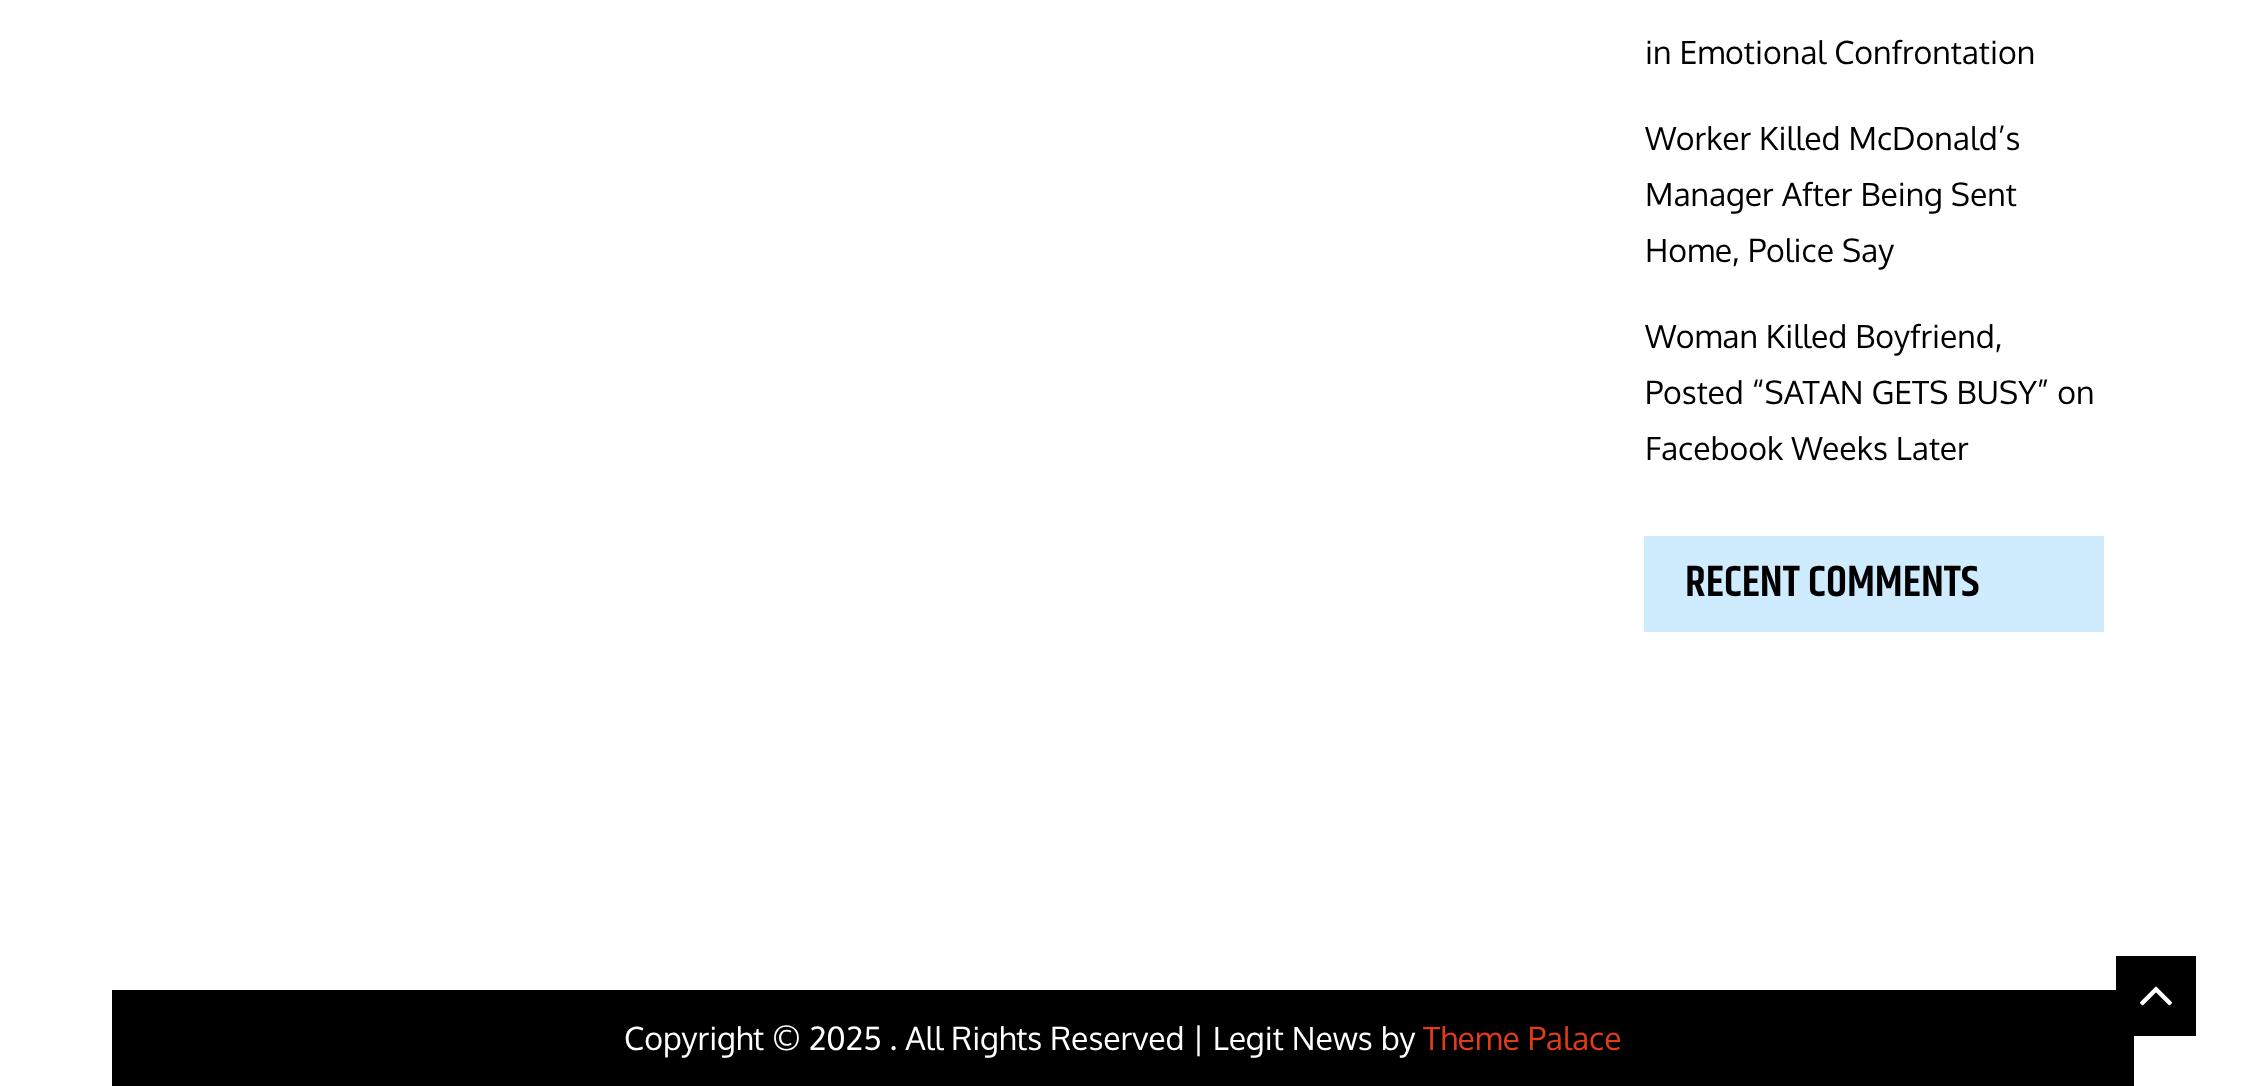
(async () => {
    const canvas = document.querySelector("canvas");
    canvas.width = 2245;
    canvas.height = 1086;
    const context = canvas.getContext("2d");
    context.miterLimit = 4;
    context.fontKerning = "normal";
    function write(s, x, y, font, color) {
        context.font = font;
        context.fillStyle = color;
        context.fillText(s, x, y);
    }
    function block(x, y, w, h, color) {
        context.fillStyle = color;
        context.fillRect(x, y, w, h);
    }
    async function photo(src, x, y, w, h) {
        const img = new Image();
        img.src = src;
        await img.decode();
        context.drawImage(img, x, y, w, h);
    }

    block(0, 0, 2245, 1086, "rgb(255, 255, 255)");
    write("in Emotional Confrontation", 1645, 64, "32px Oxygen", "rgb(0, 0, 0)");
    write("Worker Killed McDonald’s", 1645, 150, "32px Oxygen", "rgb(0, 0, 0)");
    write("Manager After Being Sent", 1645, 206, "32px Oxygen", "rgb(0, 0, 0)");
    write("Home, Police Say", 1645, 262, "32px Oxygen", "rgb(0, 0, 0)");
    write("Woman Killed Boyfriend,", 1645, 348, "32px Oxygen", "rgb(0, 0, 0)");
    write("Posted “SATAN GETS BUSY” on", 1645, 404, "32px Oxygen", "rgb(0, 0, 0)");
    write("Facebook Weeks Later", 1645, 460, "32px Oxygen", "rgb(0, 0, 0)");
    block(1644, 536, 460, 96, "rgb(207, 235, 254)");
    write("RECENT COMMENTS", 1685, 596, "600 44px Khand", "rgb(0, 0, 0)");
    block(112, 990, 2022, 96, "rgb(0, 0, 0)");
    block(2116, 956, 80, 80, "rgb(0, 0, 0)");
    await photo("media/1.png", 2140, 986, 32, 20);
    write("Copyright © 2025 . All Rights Reserved | Legit News by", 624, 1050, "32px Oxygen", "rgb(255, 255, 255)");
    write("Theme Palace", 1423, 1050, "32px Oxygen", "rgb(225, 59, 26)");
})();
